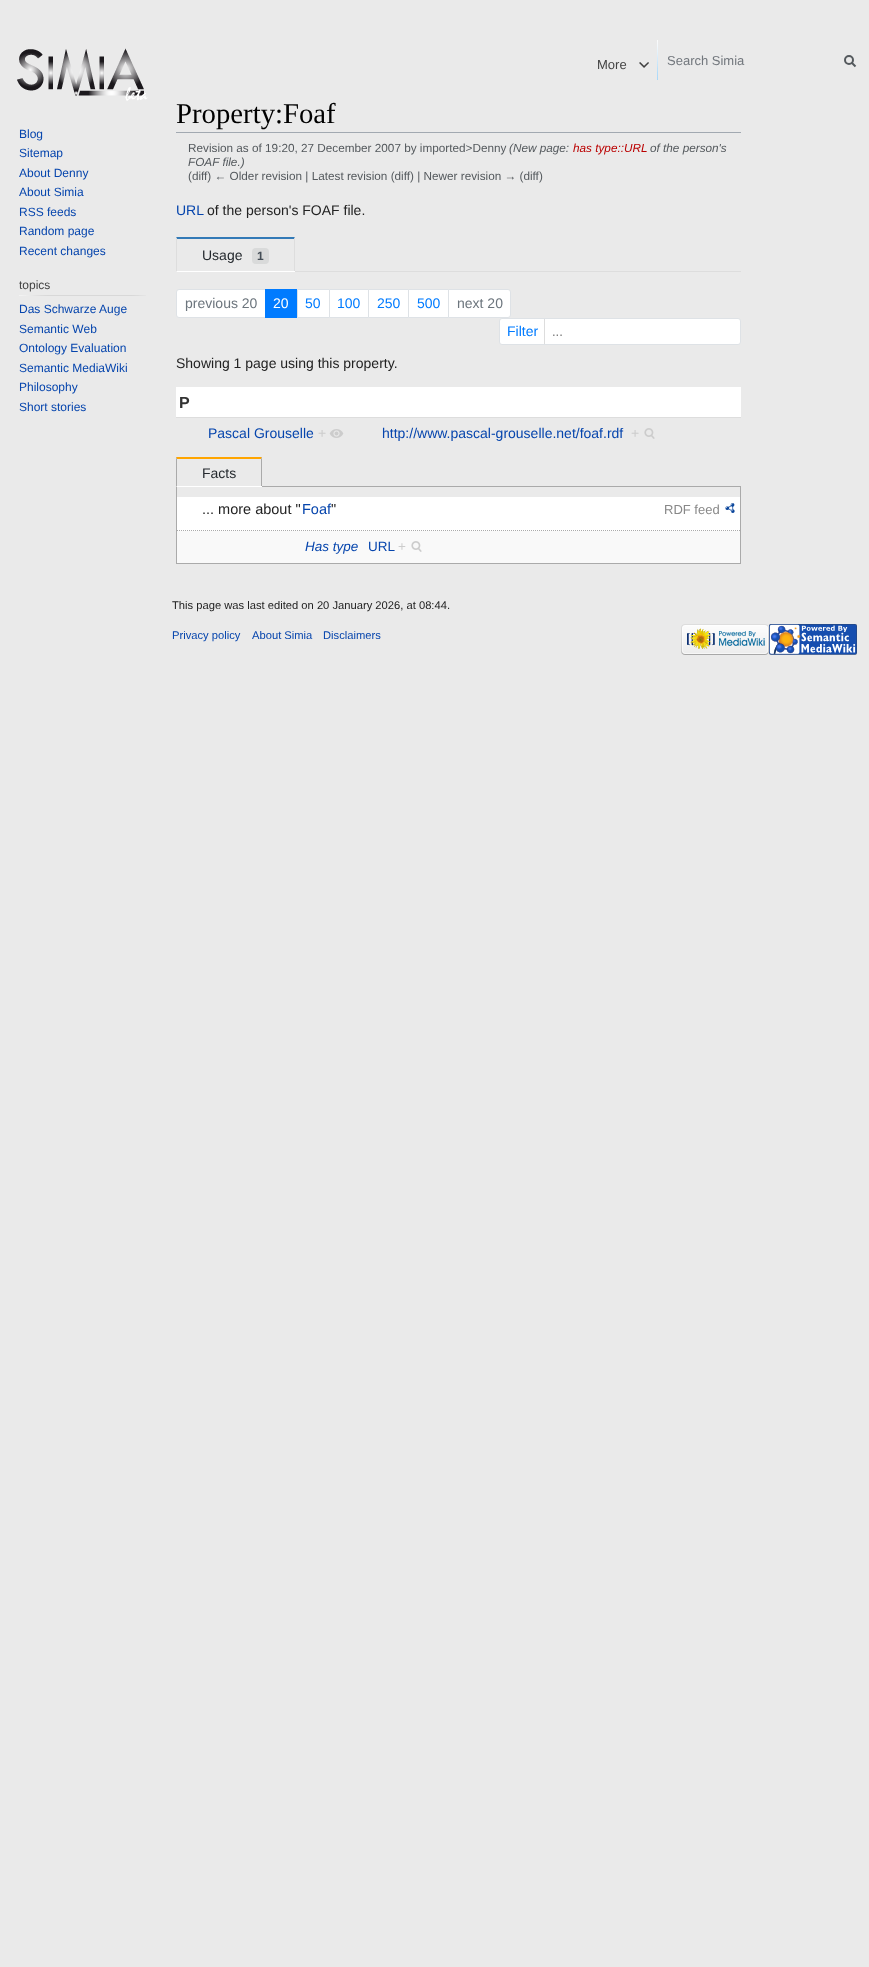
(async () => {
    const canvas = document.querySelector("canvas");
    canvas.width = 869;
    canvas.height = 1967;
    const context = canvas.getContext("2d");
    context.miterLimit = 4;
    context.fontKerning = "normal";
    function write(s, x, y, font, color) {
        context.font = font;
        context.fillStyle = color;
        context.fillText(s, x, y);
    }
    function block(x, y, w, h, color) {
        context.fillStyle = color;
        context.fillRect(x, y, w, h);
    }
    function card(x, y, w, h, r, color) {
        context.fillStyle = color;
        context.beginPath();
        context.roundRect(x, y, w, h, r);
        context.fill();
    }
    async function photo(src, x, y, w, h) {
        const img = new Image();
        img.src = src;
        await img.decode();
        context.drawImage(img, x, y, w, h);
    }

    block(0, 0, 869, 1967, "rgb(234, 234, 234)");
    await photo("media/1.png", 657, 40, 1, 40);
    write("More", 597, 69, "13px Liberation Sans", "rgb(68, 68, 68)");
    await photo("media/2.png", 639, 62, 10, 6);
    write("Search Simia", 667, 65, "13px Liberation Sans", "rgb(114, 119, 125)");
    context.beginPath();
    context.moveTo(855.5, 66.5);
    context.lineTo(851.5, 62.5);
    context.strokeStyle = "rgb(84, 89, 93)";
    context.lineWidth = 2;
    context.stroke();
    context.beginPath();
    context.arc(849, 60, 4, 0, Math.PI * 2);
    context.stroke();
    await photo("media/3.png", 17, 48, 131, 53);
    write("Blog", 19, 138, "12px Liberation Sans", "rgb(6, 69, 173)");
    write("Sitemap", 19, 157, "12px Liberation Sans", "rgb(6, 69, 173)");
    write("About Denny", 19, 177, "12px Liberation Sans", "rgb(6, 69, 173)");
    write("About Simia", 19, 196, "12px Liberation Sans", "rgb(6, 69, 173)");
    write("RSS feeds", 19, 216, "12px Liberation Sans", "rgb(6, 69, 173)");
    write("Random page", 19, 235, "12px Liberation Sans", "rgb(6, 69, 173)");
    write("Recent changes", 19, 255, "12px Liberation Sans", "rgb(6, 69, 173)");
    write("topics", 19, 289, "12px Liberation Sans", "rgb(68, 68, 68)");
    await photo("media/4.png", 19, 295, 127, 1);
    write("Das Schwarze Auge", 19, 313, "12px Liberation Sans", "rgb(6, 69, 173)");
    write("Semantic Web", 19, 333, "12px Liberation Sans", "rgb(6, 69, 173)");
    write("Ontology Evaluation", 19, 352, "12px Liberation Sans", "rgb(6, 69, 173)");
    write("Semantic MediaWiki", 19, 372, "12px Liberation Sans", "rgb(6, 69, 173)");
    write("Philosophy", 19, 391, "12px Liberation Sans", "rgb(6, 69, 173)");
    write("Short stories", 19, 411, "12px Liberation Sans", "rgb(6, 69, 173)");
    block(176, 132, 565, 1, "rgb(162, 169, 177)");
    write("Property:Foaf", 176, 123, "28.75px Liberation Serif", "rgb(0, 0, 0)");
    write("Revision as of 19:20, 27 December 2007 by imported>Denny", 188, 152, "11.75px Liberation Sans", "rgb(84, 89, 93)");
    write("(New page:", 509, 152, "italic 11.75px Liberation Sans", "rgb(84, 89, 93)");
    write("has type::URL", 573, 152, "italic 11.75px Liberation Sans", "rgb(186, 0, 0)");
    write("of the person's", 650, 152, "italic 11.75px Liberation Sans", "rgb(84, 89, 93)");
    write("FOAF file.)", 188, 166, "italic 11.75px Liberation Sans", "rgb(84, 89, 93)");
    write("(diff) ← Older revision | Latest revision (diff) | Newer revision → (diff)", 188, 180, "11.75px Liberation Sans", "rgb(84, 89, 93)");
    write("URL", 176, 215, "14px Liberation Sans", "rgb(6, 69, 173)");
    write("of the person's FOAF file.", 207, 215, "14px Liberation Sans", "rgb(34, 34, 34)");
    context.fillStyle = "rgb(51, 122, 183)";
    context.beginPath();
    context.moveTo(176, 237);
    context.lineTo(295, 237);
    context.lineTo(294, 239);
    context.lineTo(177, 239);
    context.closePath();
    context.fill();
    context.fillStyle = "rgb(221, 221, 221)";
    context.beginPath();
    context.moveTo(295, 237);
    context.lineTo(295, 272);
    context.lineTo(294, 271);
    context.lineTo(294, 239);
    context.closePath();
    context.fill();
    block(176, 271, 119, 1, "rgb(255, 255, 255)");
    context.fillStyle = "rgb(221, 221, 221)";
    context.beginPath();
    context.moveTo(176, 272);
    context.lineTo(176, 237);
    context.lineTo(177, 239);
    context.lineTo(177, 271);
    context.closePath();
    context.fill();
    write("Usage", 202, 260, "14px Liberation Sans", "rgb(36, 41, 46)");
    card(252, 248, 17, 16, 4, "rgb(217, 218, 218)");
    write("1", 257, 260, "bold 12px Liberation Sans", "rgb(68, 77, 86)");
    block(295, 271, 446, 1, "rgb(221, 221, 221)");
    context.fillStyle = "rgb(255, 255, 255)";
    context.beginPath();
    context.roundRect(176.5, 289.5, 89, 28, [2.5, 0, 0, 2.5]);
    context.fill();
    context.strokeStyle = "rgb(222, 226, 230)";
    context.lineWidth = 1;
    context.stroke();
    write("previous 20", 185, 308, "14px Liberation Sans", "rgb(108, 117, 125)");
    block(265, 289, 32, 29, "rgb(0, 123, 255)");
    write("20", 273, 308, "14px Liberation Sans", "rgb(255, 255, 255)");
    context.beginPath();
    context.rect(297.5, 289.5, 32, 28);
    context.fill();
    context.stroke();
    write("50", 305, 308, "14px Liberation Sans", "rgb(0, 123, 255)");
    context.fillStyle = "rgb(255, 255, 255)";
    context.beginPath();
    context.rect(329.5, 289.5, 39, 28);
    context.fill();
    context.stroke();
    write("100", 337, 308, "14px Liberation Sans", "rgb(0, 123, 255)");
    context.fillStyle = "rgb(255, 255, 255)";
    context.beginPath();
    context.rect(368.5, 289.5, 40, 28);
    context.fill();
    context.stroke();
    write("250", 377, 308, "14px Liberation Sans", "rgb(0, 123, 255)");
    context.fillStyle = "rgb(255, 255, 255)";
    context.beginPath();
    context.rect(408.5, 289.5, 40, 28);
    context.fill();
    context.stroke();
    write("500", 417, 308, "14px Liberation Sans", "rgb(0, 123, 255)");
    context.fillStyle = "rgb(255, 255, 255)";
    context.beginPath();
    context.roundRect(448.5, 289.5, 62, 28, [0, 2.5, 2.5, 0]);
    context.fill();
    context.stroke();
    write("next 20", 457, 308, "14px Liberation Sans", "rgb(108, 117, 125)");
    context.fillStyle = "rgb(255, 255, 255)";
    context.beginPath();
    context.roundRect(499.5, 318.5, 241, 26, 2.5);
    context.fill();
    context.stroke();
    write("Filter", 507, 336, "14px Liberation Sans", "rgb(0, 123, 255)");
    block(544, 319, 1, 25, "rgb(221, 221, 221)");
    write("...", 552, 336, "13px Liberation Sans", "rgb(117, 117, 117)");
    write("Showing 1 page using this property.", 176, 368, "14px Liberation Sans", "rgb(34, 34, 34)");
    block(176, 387, 565, 30, "rgb(255, 255, 255)");
    block(176, 417, 565, 1, "rgb(221, 221, 221)");
    write("P", 179, 408, "bold 16px Liberation Sans", "rgb(51, 51, 51)");
    write("Pascal Grouselle", 208, 438, "14px Liberation Sans", "rgb(6, 69, 173)");
    write("+", 318, 438, "14px Liberation Sans", "rgb(204, 204, 204)");
    await photo("media/5.png", 329, 429, 15, 9);
    write("http://www.pascal-grouselle.net/foaf.rdf", 382, 438, "14px Liberation Sans", "rgb(6, 69, 173)");
    write("+", 631, 438, "14px Liberation Sans", "rgb(204, 204, 204)");
    await photo("media/6.png", 644, 428, 11, 11);
    context.fillStyle = "rgb(255, 165, 0)";
    context.beginPath();
    context.moveTo(176, 457);
    context.lineTo(262, 457);
    context.lineTo(261, 459);
    context.lineTo(177, 459);
    context.closePath();
    context.fill();
    context.strokeStyle = "rgb(170, 170, 170)";
    context.strokeRect(176.5, 486.5, 564, 77);
    context.fillStyle = "rgb(170, 170, 170)";
    context.beginPath();
    context.moveTo(262, 457);
    context.lineTo(262, 487);
    context.lineTo(261, 486);
    context.lineTo(261, 459);
    context.closePath();
    context.fill();
    block(176, 486, 86, 1, "rgb(255, 255, 255)");
    context.fillStyle = "rgb(170, 170, 170)";
    context.beginPath();
    context.moveTo(176, 487);
    context.lineTo(176, 457);
    context.lineTo(177, 459);
    context.lineTo(177, 486);
    context.closePath();
    context.fill();
    write("Facts", 202, 478, "14px Liberation Sans", "rgb(36, 41, 46)");
    block(177, 497, 563, 34, "rgb(255, 255, 255)");
    write("... more about \"", 202, 514, "14.5px Liberation Sans", "rgb(34, 34, 34)");
    write("Foaf", 302, 514, "14.5px Liberation Sans", "rgb(6, 69, 173)");
    write("\"", 331, 514, "14.5px Liberation Sans", "rgb(34, 34, 34)");
    write("RDF feed", 664, 514, "13px Liberation Sans", "rgb(136, 136, 136)");
    await photo("media/7.png", 725, 503, 10, 10);
    context.beginPath();
    context.moveTo(177, 530.5);
    context.lineTo(740, 530.5);
    context.setLineDash([1, 1]);
    context.stroke();
    block(177, 531, 563, 32, "rgb(249, 249, 249)");
    write("Has type", 305, 551, "italic 13.5px Liberation Sans", "rgb(6, 69, 173)");
    write("URL", 368, 551, "13.5px Liberation Sans", "rgb(6, 69, 173)");
    write("+", 398, 551, "13.5px Liberation Sans", "rgb(204, 204, 204)");
    await photo("media/8.png", 411, 541, 11, 11);
    write("This page was last edited on 20 January 2026, at 08:44.", 172, 609, "11.2px Liberation Sans", "rgb(34, 34, 34)");
    write("Privacy policy", 172, 639, "11.2px Liberation Sans", "rgb(6, 69, 173)");
    write("About Simia", 252, 639, "11.2px Liberation Sans", "rgb(6, 69, 173)");
    write("Disclaimers", 323, 639, "11.2px Liberation Sans", "rgb(6, 69, 173)");
    await photo("media/9.png", 681, 624, 88, 31);
    await photo("media/10.png", 769, 624, 88, 31);
})();
